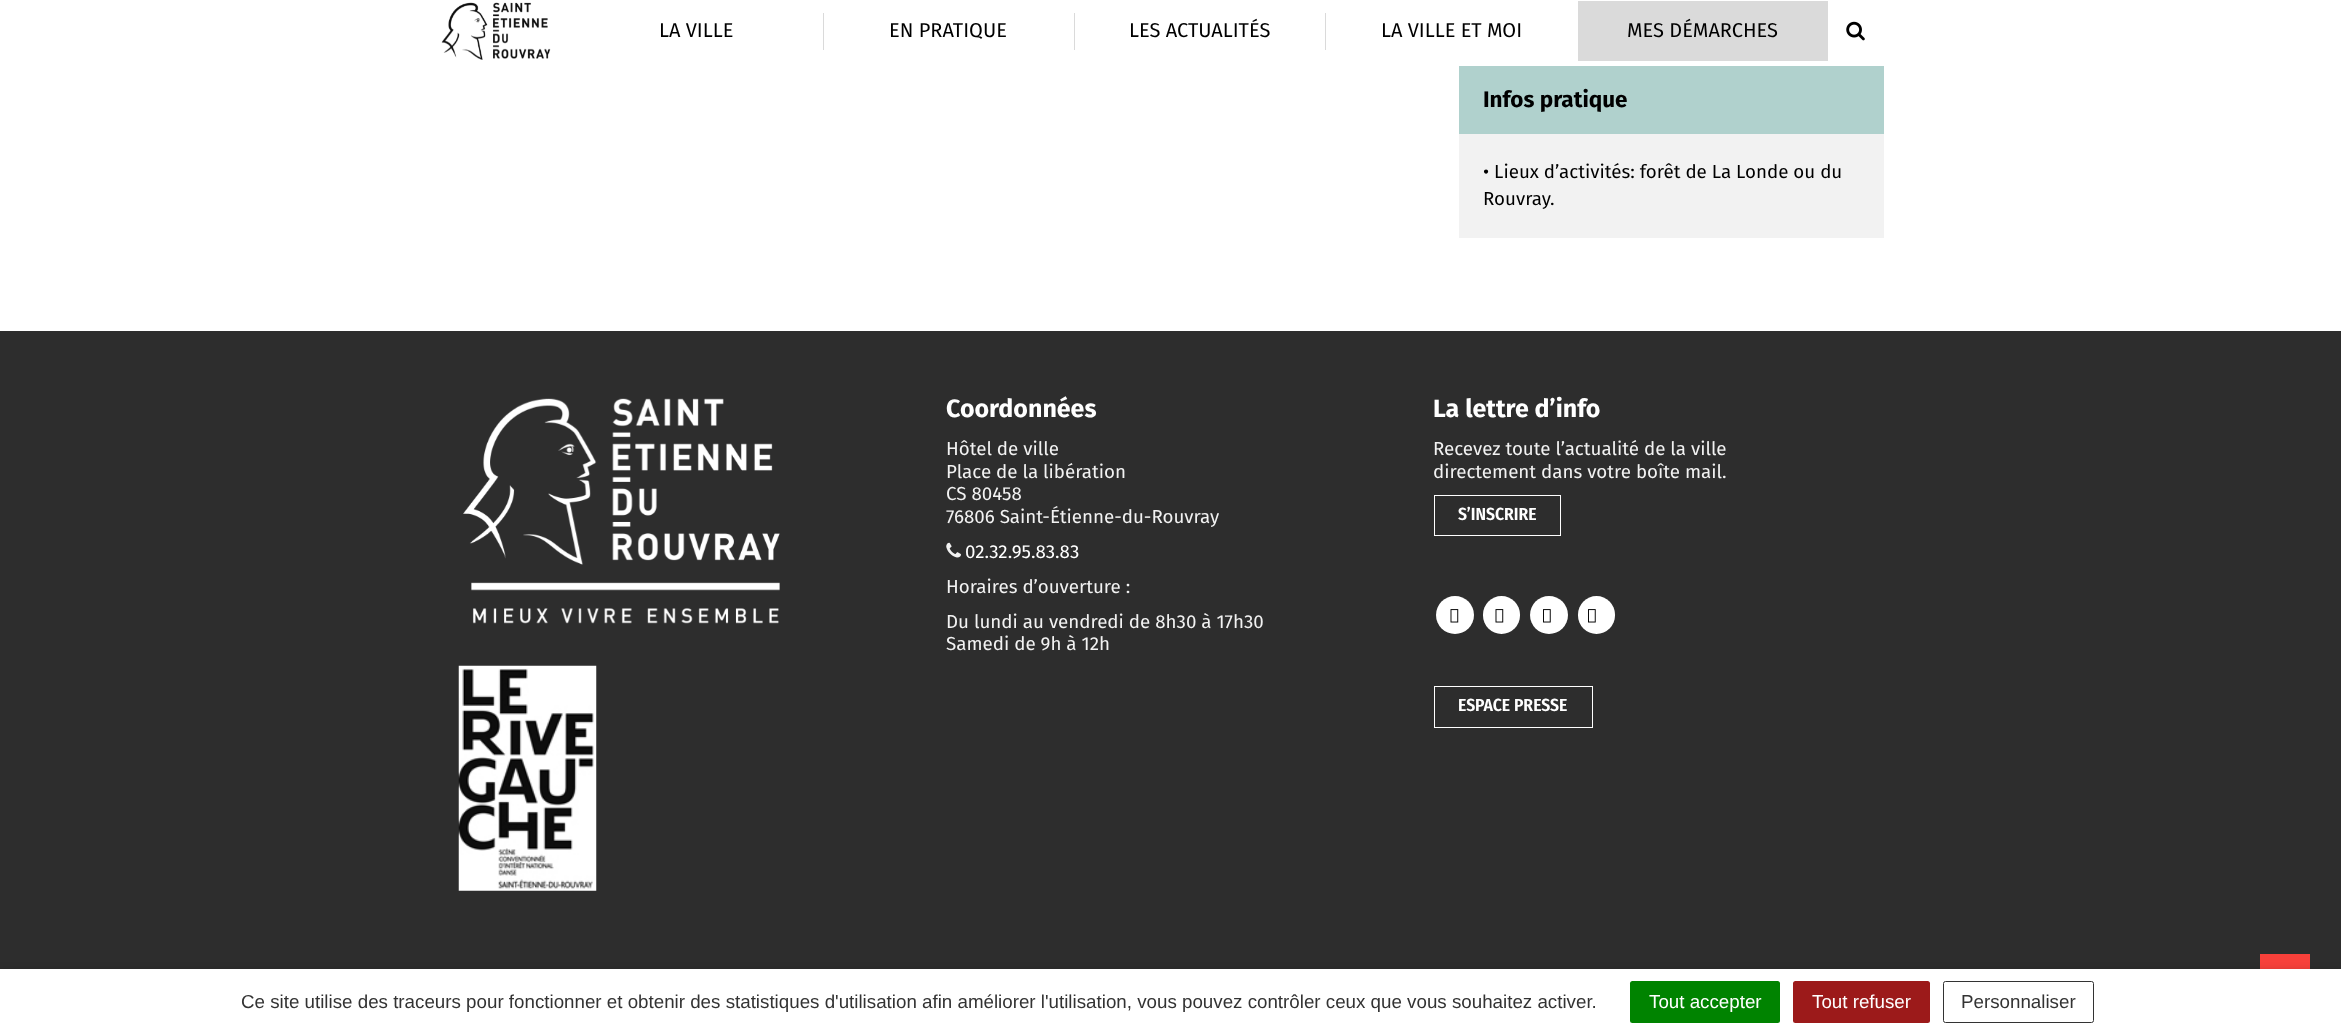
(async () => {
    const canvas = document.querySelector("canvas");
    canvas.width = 2341;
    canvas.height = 1034;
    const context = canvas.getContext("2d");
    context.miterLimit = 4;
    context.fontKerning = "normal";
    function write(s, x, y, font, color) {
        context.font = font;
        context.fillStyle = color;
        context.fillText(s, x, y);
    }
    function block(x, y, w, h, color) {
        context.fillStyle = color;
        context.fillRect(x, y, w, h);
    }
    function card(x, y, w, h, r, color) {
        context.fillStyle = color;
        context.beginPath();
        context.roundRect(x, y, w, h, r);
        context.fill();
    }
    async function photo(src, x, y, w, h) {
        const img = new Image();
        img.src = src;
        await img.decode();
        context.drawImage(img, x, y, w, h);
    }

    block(0, 0, 2341, 1034, "rgb(255, 255, 255)");
    await photo("media/1.png", 441, 2, 110, 58);
    write("LA VILLE", 659, 37, "20px Fira Sans", "rgb(0, 0, 0)");
    block(823, 13, 1, 37, "rgb(218, 218, 218)");
    write("EN PRATIQUE", 889, 37, "20px Fira Sans", "rgb(0, 0, 0)");
    block(1074, 13, 1, 37, "rgb(218, 218, 218)");
    write("LES ACTUALITÉS", 1129, 37, "20px Fira Sans", "rgb(0, 0, 0)");
    block(1325, 13, 1, 37, "rgb(218, 218, 218)");
    write("LA VILLE ET MOI", 1381, 37, "20px Fira Sans", "rgb(0, 0, 0)");
    block(1578, 1, 250, 60, "rgb(218, 218, 218)");
    write("MES DÉMARCHES", 1627, 37, "20px Fira Sans", "rgb(0, 0, 0)");
    await photo("media/2.png", 1846, 21, 19, 20);
    block(1459, 66, 425, 68, "rgb(176, 209, 205)");
    write("Infos pratique", 1483, 107, "bold 22.5px Fira Sans", "rgb(0, 0, 0)");
    block(1459, 134, 425, 104, "rgb(242, 242, 242)");
    write("• Lieux d’activités: forêt de La Londe ou du", 1483, 178, "18.75px Fira Sans", "rgb(0, 0, 0)");
    write("Rouvray.", 1483, 205, "18.75px Fira Sans", "rgb(0, 0, 0)");
    block(0, 331, 2341, 638, "rgb(45, 45, 45)");
    await photo("media/3.png", 463, 398, 317, 226);
    await photo("media/4.png", 458, 665, 139, 226);
    write("Coordonnées", 946, 417, "bold 25px Fira Sans", "rgb(255, 255, 255)");
    write("Hôtel de ville", 946, 455, "18.75px Fira Sans", "rgb(242, 242, 242)");
    write("Place de la libération", 946, 478, "18.75px Fira Sans", "rgb(242, 242, 242)");
    write("CS 80458", 946, 500, "18.75px Fira Sans", "rgb(242, 242, 242)");
    write("76806 Saint-Étienne-du-Rouvray", 946, 523, "18.75px Fira Sans", "rgb(242, 242, 242)");
    await photo("media/5.png", 946, 542, 15, 16);
    write("02.32.95.83.83", 965, 558, "18.75px Fira Sans", "rgb(255, 255, 255)");
    write("Horaires d’ouverture :", 946, 593, "18.75px Fira Sans", "rgb(242, 242, 242)");
    write("Du lundi au vendredi de 8h30 à 17h30", 946, 628, "18.75px Fira Sans", "rgb(242, 242, 242)");
    write("Samedi de 9h à 12h", 946, 650, "18.75px Fira Sans", "rgb(242, 242, 242)");
    write("La lettre d’info", 1433, 417, "bold 25px Fira Sans", "rgb(255, 255, 255)");
    write("Recevez toute l’actualité de la ville", 1433, 455, "18.75px Fira Sans", "rgb(242, 242, 242)");
    write("directement dans votre boîte mail.", 1433, 478, "18.75px Fira Sans", "rgb(242, 242, 242)");
    context.strokeStyle = "rgb(255, 255, 255)";
    context.strokeRect(1434.5, 495.5, 126, 40);
    write("S’INSCRIRE", 1458, 520, "600 17.5px Fira Sans Condensed", "rgb(255, 255, 255)");
    context.beginPath();
    context.arc(1455, 615, 19, 0, Math.PI * 2);
    context.fill();
    await photo("media/6.png", 1450, 609, 9, 14);
    card(1483, 596, 37, 38, 18.5, "rgb(255, 255, 255)");
    await photo("media/6.png", 1495, 609, 9, 14);
    context.beginPath();
    context.arc(1549, 615, 19, 0, Math.PI * 2);
    context.fill();
    await photo("media/7.png", 1543, 609, 8, 14);
    card(1578, 596, 37, 38, 18.5, "rgb(255, 255, 255)");
    await photo("media/7.png", 1588, 609, 8, 14);
    context.strokeRect(1434.5, 686.5, 158, 41);
    write("ESPACE PRESSE", 1458, 711, "600 17.5px Fira Sans Condensed", "rgb(255, 255, 255)");
    block(2260, 954, 50, 15, "rgb(247, 64, 58)");
    context.fillStyle = "rgba(0, 0, 0, 0.5)";
    context.filter = "blur(6px)";
    context.beginPath();
    context.rect(0, 975, 2341, 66);
    context.fill();
    context.filter = "none";
    block(0, 969, 2341, 65, "rgb(255, 255, 255)");
    write("Ce site utilise des traceurs pour fonctionner et obtenir des statistiques d'utilisation afin améliorer l'utilisation, vous pouvez contrôler ceux que vous souhaitez activer.", 241, 1008, "18.75px Liberation Sans", "rgb(51, 51, 51)");
    card(1630, 981, 150, 42, 2.5, "rgb(0, 131, 0)");
    write("Tout accepter", 1649, 1008, "18.75px Liberation Sans", "rgb(255, 255, 255)");
    card(1793, 981, 137, 42, 2.5, "rgb(156, 26, 26)");
    write("Tout refuser", 1812, 1008, "18.75px Liberation Sans", "rgb(255, 255, 255)");
    context.beginPath();
    context.roundRect(1943.5, 981.5, 150, 41, 2);
    context.strokeStyle = "rgb(51, 51, 51)";
    context.stroke();
    write("Personnaliser", 1961, 1008, "18.75px Liberation Sans", "rgb(51, 51, 51)");
})();
